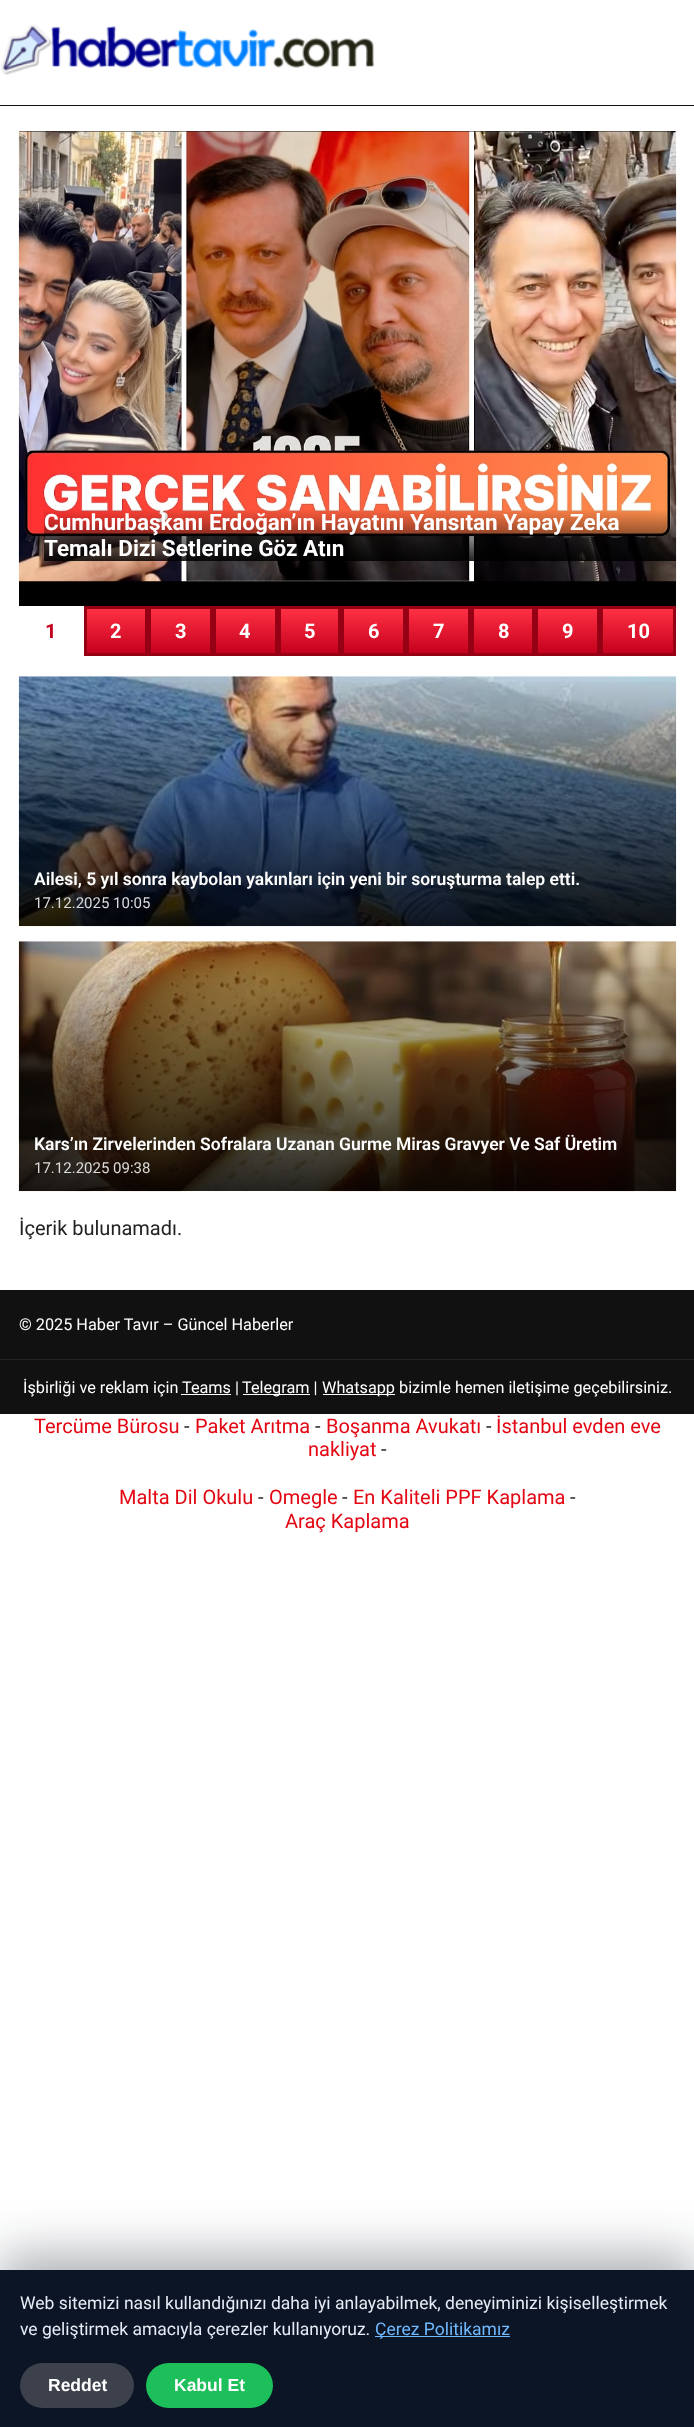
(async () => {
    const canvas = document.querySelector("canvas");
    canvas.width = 694;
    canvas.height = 2427;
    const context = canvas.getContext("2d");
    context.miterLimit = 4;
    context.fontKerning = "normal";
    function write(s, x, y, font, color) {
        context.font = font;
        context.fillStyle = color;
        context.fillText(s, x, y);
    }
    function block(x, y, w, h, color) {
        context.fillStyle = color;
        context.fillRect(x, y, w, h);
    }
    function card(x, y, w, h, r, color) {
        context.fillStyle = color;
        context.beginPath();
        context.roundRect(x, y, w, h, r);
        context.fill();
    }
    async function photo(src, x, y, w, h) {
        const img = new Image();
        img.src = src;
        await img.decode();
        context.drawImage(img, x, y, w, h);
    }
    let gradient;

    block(0, 0, 694, 2427, "rgb(255, 255, 255)");
    await photo("media/1.png", 0, 23, 375, 52);
    block(0, 105, 694, 1, "rgb(17, 17, 17)");
    block(19, 131, 657, 475, "rgb(0, 0, 0)");
    await photo("media/2.png", 18, 131, 659, 451);
    write("Cumhurbaşkanı Erdoğan’ın Hayatını Yansıtan Yapay Zeka", 44, 530, "bold 22.5px Roboto", "rgb(255, 255, 255)");
    write("Temalı Dizi Setlerine Göz Atın", 44, 556, "bold 22.5px Roboto", "rgb(255, 255, 255)");
    await photo("media/3.png", 18, 676, 659, 251);
    gradient = context.createLinearGradient(348, 926, 348, 676);
    gradient.addColorStop(0, "rgba(0, 0, 0, 0.85)");
    gradient.addColorStop(1, "rgba(0, 0, 0, 0)");
    context.fillStyle = gradient;
    context.fillRect(19, 682, 657, 244);
    context.save();
    context.beginPath();
    context.rect(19, 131, 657, 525);
    context.clip();
    context.fillStyle = "rgba(0, 0, 0, 0.35)";
    context.filter = "blur(11px)";
    context.beginPath();
    context.rect(19, 599, 657, 50);
    context.fill();
    context.filter = "none";
    context.restore();
    block(19, 606, 65, 50, "rgb(255, 255, 255)");
    write("1", 45, 638, "bold 20px Roboto", "rgb(196, 0, 29)");
    gradient = context.createLinearGradient(116, 609, 116, 654);
    gradient.addColorStop(0, "rgb(255, 48, 67)");
    gradient.addColorStop(1, "rgb(196, 0, 29)");
    context.fillStyle = gradient;
    context.fillRect(87, 609, 58, 44);
    context.strokeStyle = "rgb(149, 0, 20)";
    context.lineWidth = 3;
    context.strokeRect(85.5, 607.5, 61, 47);
    write("2", 110, 638, "bold 20px Roboto", "rgb(255, 255, 255)");
    gradient = context.createLinearGradient(180, 609, 180, 654);
    gradient.addColorStop(0, "rgb(255, 48, 67)");
    gradient.addColorStop(1, "rgb(196, 0, 29)");
    context.fillStyle = gradient;
    context.fillRect(151, 609, 59, 44);
    context.strokeRect(149.5, 607.5, 62, 47);
    write("3", 175, 638, "bold 20px Roboto", "rgb(255, 255, 255)");
    gradient = context.createLinearGradient(245, 609, 245, 654);
    gradient.addColorStop(0, "rgb(255, 48, 67)");
    gradient.addColorStop(1, "rgb(196, 0, 29)");
    context.fillStyle = gradient;
    context.fillRect(216, 609, 59, 44);
    context.strokeRect(214.5, 607.5, 62, 47);
    write("4", 239, 638, "bold 20px Roboto", "rgb(255, 255, 255)");
    gradient = context.createLinearGradient(309, 609, 309, 654);
    gradient.addColorStop(0, "rgb(255, 48, 67)");
    gradient.addColorStop(1, "rgb(196, 0, 29)");
    context.fillStyle = gradient;
    context.fillRect(281, 609, 57, 44);
    context.strokeRect(279.5, 607.5, 60, 47);
    write("5", 304, 638, "bold 20px Roboto", "rgb(255, 255, 255)");
    gradient = context.createLinearGradient(374, 609, 374, 654);
    gradient.addColorStop(0, "rgb(255, 48, 67)");
    gradient.addColorStop(1, "rgb(196, 0, 29)");
    context.fillStyle = gradient;
    context.fillRect(344, 609, 59, 44);
    context.strokeRect(342.5, 607.5, 62, 47);
    write("6", 368, 638, "bold 20px Roboto", "rgb(255, 255, 255)");
    gradient = context.createLinearGradient(439, 609, 439, 654);
    gradient.addColorStop(0, "rgb(255, 48, 67)");
    gradient.addColorStop(1, "rgb(196, 0, 29)");
    context.fillStyle = gradient;
    context.fillRect(409, 609, 59, 44);
    context.strokeRect(407.5, 607.5, 62, 47);
    write("7", 433, 638, "bold 20px Roboto", "rgb(255, 255, 255)");
    gradient = context.createLinearGradient(503, 609, 503, 654);
    gradient.addColorStop(0, "rgb(255, 48, 67)");
    gradient.addColorStop(1, "rgb(196, 0, 29)");
    context.fillStyle = gradient;
    context.fillRect(474, 609, 58, 44);
    context.strokeRect(472.5, 607.5, 61, 47);
    write("8", 498, 638, "bold 20px Roboto", "rgb(255, 255, 255)");
    gradient = context.createLinearGradient(568, 609, 568, 654);
    gradient.addColorStop(0, "rgb(255, 48, 67)");
    gradient.addColorStop(1, "rgb(196, 0, 29)");
    context.fillStyle = gradient;
    context.fillRect(538, 609, 59, 44);
    context.strokeRect(536.5, 607.5, 62, 47);
    write("9", 562, 638, "bold 20px Roboto", "rgb(255, 255, 255)");
    gradient = context.createLinearGradient(638, 609, 638, 654);
    gradient.addColorStop(0, "rgb(255, 48, 67)");
    gradient.addColorStop(1, "rgb(196, 0, 29)");
    context.fillStyle = gradient;
    context.fillRect(603, 609, 70, 44);
    context.strokeRect(601.5, 607.5, 73, 47);
    write("10", 627, 638, "bold 20px Roboto", "rgb(255, 255, 255)");
    write("Ailesi, 5 yıl sonra kaybolan yakınları için yeni bir soruşturma talep etti.", 34, 885, "600 17.5px Roboto", "rgb(255, 255, 255)");
    write("17.12.2025 10:05", 34, 908, "15px Roboto", "rgb(219, 219, 219)");
    await photo("media/4.png", 18, 941, 659, 251);
    gradient = context.createLinearGradient(348, 1191, 348, 941);
    gradient.addColorStop(0, "rgba(0, 0, 0, 0.85)");
    gradient.addColorStop(1, "rgba(0, 0, 0, 0)");
    context.fillStyle = gradient;
    context.fillRect(19, 947, 657, 244);
    write("Kars’ın Zirvelerinden Sofralara Uzanan Gurme Miras Gravyer Ve Saf Üretim", 34, 1150, "600 17.5px Roboto", "rgb(255, 255, 255)");
    write("17.12.2025 09:38", 34, 1173, "15px Roboto", "rgb(219, 219, 219)");
    write("İçerik bulunamadı.", 19, 1235, "20px Roboto", "rgb(34, 34, 34)");
    block(0, 1290, 694, 69, "rgb(17, 17, 17)");
    write("© 2025 Haber Tavır – Güncel Haberler", 19, 1330, "16.25px Roboto", "rgb(255, 255, 255)");
    block(0, 1360, 694, 54, "rgb(17, 17, 17)");
    block(0, 1359, 694, 1, "rgb(36, 36, 36)");
    write("İşbirliği ve reklam için", 23, 1393, "16.25px Roboto", "rgb(255, 255, 255)");
    block(181, 1394, 50, 1, "rgb(255, 255, 255)");
    write("Teams |", 182, 1393, "16.25px Roboto", "rgb(255, 255, 255)");
    block(243, 1394, 67, 1, "rgb(255, 255, 255)");
    write("Telegram |", 242, 1393, "16.25px Roboto", "rgb(255, 255, 255)");
    block(323, 1394, 72, 1, "rgb(255, 255, 255)");
    write("Whatsapp bizimle hemen iletişime geçebilirsiniz.", 322, 1393, "16.25px Roboto", "rgb(255, 255, 255)");
    write("Tercüme Bürosu", 34, 1433, "20px Roboto", "rgb(227, 6, 19)");
    write("-", 184, 1433, "20px Roboto", "rgb(34, 34, 34)");
    write("Paket Arıtma", 195, 1433, "20px Roboto", "rgb(227, 6, 19)");
    write("-", 315, 1433, "20px Roboto", "rgb(34, 34, 34)");
    write("Boşanma Avukatı", 326, 1433, "20px Roboto", "rgb(227, 6, 19)");
    write("-", 486, 1433, "20px Roboto", "rgb(34, 34, 34)");
    write("İstanbul evden eve", 496, 1433, "20px Roboto", "rgb(227, 6, 19)");
    write("nakliyat", 308, 1456, "20px Roboto", "rgb(227, 6, 19)");
    write("-", 381, 1456, "20px Roboto", "rgb(34, 34, 34)");
    write("Malta Dil Okulu", 119, 1504, "20px Roboto", "rgb(227, 6, 19)");
    write("-", 258, 1504, "20px Roboto", "rgb(34, 34, 34)");
    write("Omegle", 269, 1504, "20px Roboto", "rgb(227, 6, 19)");
    write("-", 342, 1504, "20px Roboto", "rgb(34, 34, 34)");
    write("En Kaliteli PPF Kaplama", 353, 1504, "20px Roboto", "rgb(227, 6, 19)");
    write("-", 570, 1504, "20px Roboto", "rgb(34, 34, 34)");
    write("Araç Kaplama", 285, 1528, "20px Roboto", "rgb(227, 6, 19)");
    context.fillStyle = "rgba(12, 21, 34, 0.35)";
    context.filter = "blur(25px)";
    context.beginPath();
    context.rect(0, 2255, 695, 158);
    context.fill();
    context.filter = "none";
    block(0, 2270, 694, 157, "rgb(11, 21, 38)");
    write("Web sitemizi nasıl kullandığınızı daha iyi anlayabilmek, deneyiminizi kişiselleştirmek", 20, 2309, "17.5px Roboto", "rgb(231, 236, 246)");
    write("ve geliştirmek amacıyla çerezler kullanıyoruz.", 20, 2335, "17.5px Roboto", "rgb(231, 236, 246)");
    block(375, 2336, 135, 1, "rgb(111, 185, 255)");
    write("Çerez Politikamız", 375, 2335, "17.5px Roboto", "rgb(111, 185, 255)");
    card(20, 2363, 114, 45, 22.5, "rgb(60, 65, 75)");
    write("Reddet", 48, 2391, "bold 17.5px Liberation Sans", "rgb(255, 255, 255)");
    card(146, 2363, 127, 45, 22.5, "rgb(29, 191, 91)");
    write("Kabul Et", 174, 2391, "bold 17.5px Liberation Sans", "rgb(255, 255, 255)");
})();
